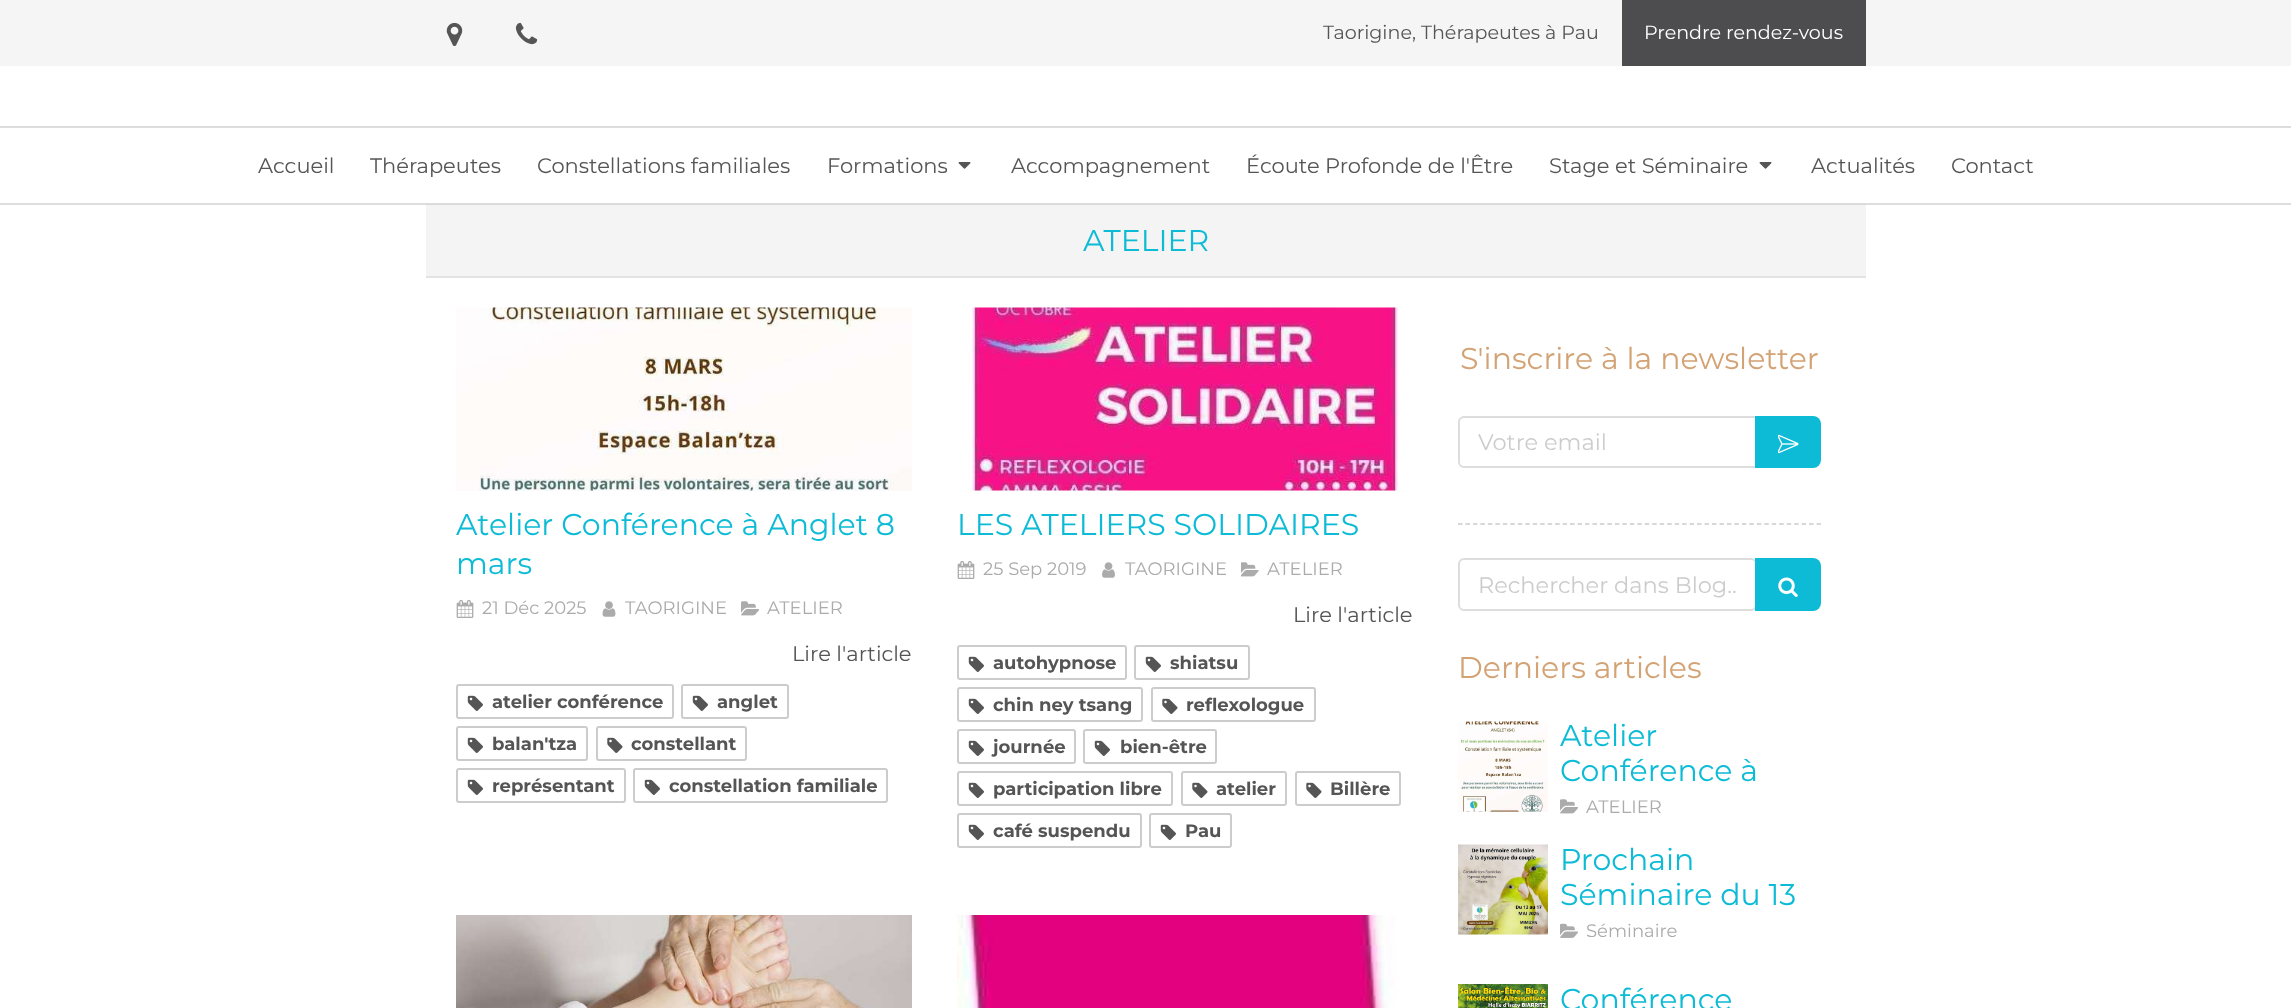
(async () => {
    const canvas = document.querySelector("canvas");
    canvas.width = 2291;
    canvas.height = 1008;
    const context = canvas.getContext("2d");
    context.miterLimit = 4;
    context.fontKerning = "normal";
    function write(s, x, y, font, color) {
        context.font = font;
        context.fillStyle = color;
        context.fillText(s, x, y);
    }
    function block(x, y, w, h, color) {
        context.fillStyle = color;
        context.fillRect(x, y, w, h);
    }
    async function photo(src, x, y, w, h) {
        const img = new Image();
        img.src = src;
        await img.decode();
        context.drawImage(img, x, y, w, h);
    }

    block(0, 0, 2291, 1008, "rgb(255, 255, 255)");
    block(426, 205, 1440, 71, "rgb(244, 244, 244)");
    block(0, 0, 2291, 66, "rgb(245, 245, 245)");
    await photo("media/1.png", 446, 22, 17, 24);
    await photo("media/2.png", 515, 22, 23, 23);
    write("Taorigine, Thérapeutes à Pau", 1323, 39, "19.1px Montserrat", "rgb(85, 85, 85)");
    block(1622, 0, 244, 66, "rgb(77, 77, 80)");
    write("Prendre rendez-vous", 1644, 39, "19.1px Montserrat", "rgb(255, 255, 255)");
    block(0, 126, 2291, 2, "rgb(221, 221, 221)");
    block(0, 203, 2291, 2, "rgb(221, 221, 221)");
    block(426, 204, 1440, 1, "rgb(217, 217, 217)");
    write("Accueil", 258, 173, "21px Montserrat", "rgb(85, 85, 85)");
    write("Thérapeutes", 370, 173, "21px Montserrat", "rgb(85, 85, 85)");
    write("Constellations familiales", 537, 173, "21px Montserrat", "rgb(85, 85, 85)");
    write("Formations", 827, 173, "21px Montserrat", "rgb(85, 85, 85)");
    await photo("media/3.png", 958, 162, 13, 7);
    write("Accompagnement", 1011, 173, "21px Montserrat", "rgb(85, 85, 85)");
    write("Écoute Profonde de l'Être", 1246, 173, "21px Montserrat", "rgb(85, 85, 85)");
    write("Stage et Séminaire", 1549, 173, "21px Montserrat", "rgb(85, 85, 85)");
    await photo("media/3.png", 1759, 162, 13, 7);
    write("Actualités", 1811, 173, "21px Montserrat", "rgb(85, 85, 85)");
    write("Contact", 1951, 173, "21px Montserrat", "rgb(85, 85, 85)");
    block(426, 276, 1440, 2, "rgb(226, 226, 226)");
    write("ATELIER", 1083, 251, "30px Montserrat", "rgb(14, 187, 214)");
    block(456, 490, 456, 1, "rgb(250, 250, 250)");
    await photo("media/4.png", 456, 307, 456, 184);
    write("Atelier Conférence à Anglet 8", 456, 535, "30px Montserrat", "rgb(14, 187, 214)");
    write("mars", 456, 574, "30px Montserrat", "rgb(14, 187, 214)");
    await photo("media/5.png", 456, 600, 18, 18);
    write("21 Déc 2025", 482, 614, "18px Montserrat", "rgb(171, 171, 171)");
    await photo("media/6.png", 602, 601, 14, 16);
    write("TAORIGINE", 625, 614, "18px Montserrat", "rgb(171, 171, 171)");
    await photo("media/7.png", 741, 601, 18, 15);
    write("ATELIER", 767, 614, "18px Montserrat", "rgb(171, 171, 171)");
    write("Lire l'article", 792, 661, "21px Montserrat", "rgb(85, 85, 85)");
    context.beginPath();
    context.roundRect(457, 685, 216, 33, 2);
    context.strokeStyle = "rgb(204, 204, 204)";
    context.lineWidth = 2;
    context.stroke();
    await photo("media/8.png", 467, 695, 16, 16);
    write("atelier conférence", 492, 708, "bold 18px Montserrat", "rgb(85, 85, 85)");
    context.beginPath();
    context.roundRect(682, 685, 106, 33, 2);
    context.stroke();
    await photo("media/8.png", 692, 695, 16, 16);
    write("anglet", 717, 708, "bold 18px Montserrat", "rgb(85, 85, 85)");
    context.beginPath();
    context.roundRect(457, 727, 130, 33, 2);
    context.stroke();
    await photo("media/8.png", 467, 737, 16, 16);
    write("balan'tza", 492, 750, "bold 18px Montserrat", "rgb(85, 85, 85)");
    context.beginPath();
    context.roundRect(597, 727, 149, 33, 2);
    context.stroke();
    await photo("media/9.png", 607, 737, 16, 16);
    write("constellant", 631, 750, "bold 18px Montserrat", "rgb(85, 85, 85)");
    context.beginPath();
    context.roundRect(457, 769, 168, 33, 2);
    context.stroke();
    await photo("media/8.png", 467, 779, 16, 16);
    write("représentant", 492, 792, "bold 18px Montserrat", "rgb(85, 85, 85)");
    context.beginPath();
    context.roundRect(634, 769, 253, 33, 2);
    context.stroke();
    await photo("media/8.png", 644, 779, 16, 16);
    write("constellation familiale", 669, 792, "bold 18px Montserrat", "rgb(85, 85, 85)");
    block(957, 490, 456, 1, "rgb(250, 250, 250)");
    await photo("media/10.png", 957, 307, 456, 184);
    write("LES ATELIERS SOLIDAIRES", 957, 535, "30px Montserrat", "rgb(14, 187, 214)");
    await photo("media/5.png", 957, 561, 18, 18);
    write("25 Sep 2019", 983, 575, "18px Montserrat", "rgb(171, 171, 171)");
    await photo("media/11.png", 1102, 562, 13, 16);
    write("TAORIGINE", 1125, 575, "18px Montserrat", "rgb(171, 171, 171)");
    await photo("media/12.png", 1241, 562, 18, 15);
    write("ATELIER", 1267, 575, "18px Montserrat", "rgb(171, 171, 171)");
    write("Lire l'article", 1293, 622, "21px Montserrat", "rgb(85, 85, 85)");
    context.beginPath();
    context.roundRect(958, 646, 168, 33, 2);
    context.stroke();
    await photo("media/8.png", 968, 656, 16, 16);
    write("autohypnose", 993, 669, "bold 18px Montserrat", "rgb(85, 85, 85)");
    context.beginPath();
    context.roundRect(1135, 646, 114, 33, 2);
    context.stroke();
    await photo("media/8.png", 1145, 656, 16, 16);
    write("shiatsu", 1170, 669, "bold 18px Montserrat", "rgb(85, 85, 85)");
    context.beginPath();
    context.roundRect(958, 688, 184, 33, 2);
    context.stroke();
    await photo("media/8.png", 968, 698, 16, 16);
    write("chin ney tsang", 993, 711, "bold 18px Montserrat", "rgb(85, 85, 85)");
    context.beginPath();
    context.roundRect(1152, 688, 163, 33, 2);
    context.stroke();
    await photo("media/9.png", 1162, 698, 16, 16);
    write("reflexologue", 1186, 711, "bold 18px Montserrat", "rgb(85, 85, 85)");
    context.beginPath();
    context.roundRect(958, 730, 117, 33, 2);
    context.stroke();
    await photo("media/8.png", 968, 740, 16, 16);
    write("journée", 993, 753, "bold 18px Montserrat", "rgb(85, 85, 85)");
    context.beginPath();
    context.roundRect(1084, 730, 132, 33, 2);
    context.stroke();
    await photo("media/8.png", 1094, 740, 16, 16);
    write("bien-être", 1120, 753, "bold 18px Montserrat", "rgb(85, 85, 85)");
    context.beginPath();
    context.roundRect(958, 772, 214, 33, 2);
    context.stroke();
    await photo("media/8.png", 968, 782, 16, 16);
    write("participation libre", 993, 795, "bold 18px Montserrat", "rgb(85, 85, 85)");
    context.beginPath();
    context.roundRect(1182, 772, 104, 33, 2);
    context.stroke();
    await photo("media/9.png", 1192, 782, 16, 16);
    write("atelier", 1216, 795, "bold 18px Montserrat", "rgb(85, 85, 85)");
    context.beginPath();
    context.roundRect(1296, 772, 104, 33, 2);
    context.stroke();
    await photo("media/9.png", 1306, 782, 16, 16);
    write("Billère", 1330, 795, "bold 18px Montserrat", "rgb(85, 85, 85)");
    context.beginPath();
    context.roundRect(958, 814, 183, 33, 2);
    context.stroke();
    await photo("media/8.png", 968, 824, 16, 16);
    write("café suspendu", 993, 837, "bold 18px Montserrat", "rgb(85, 85, 85)");
    context.beginPath();
    context.roundRect(1150, 814, 81, 33, 2);
    context.stroke();
    await photo("media/8.png", 1160, 824, 16, 16);
    write("Pau", 1185, 837, "bold 18px Montserrat", "rgb(85, 85, 85)");
    await photo("media/13.png", 456, 915, 456, 93);
    await photo("media/14.png", 957, 915, 456, 93);
    write("S'inscrire à la newsletter", 1460, 369, "30px Montserrat", "rgb(211, 163, 117)");
    context.beginPath();
    context.roundRect(1459, 417, 297, 50, [5, 0, 0, 5]);
    context.strokeStyle = "rgb(221, 221, 221)";
    context.stroke();
    write("Votre email", 1478, 450, "22.5px Montserrat", "rgb(204, 204, 204)");
    context.fillStyle = "rgb(14, 187, 214)";
    context.beginPath();
    context.roundRect(1755, 416, 66, 52, [0, 8, 8, 0]);
    context.fill();
    await photo("media/15.png", 1778, 434, 21, 20);
    context.beginPath();
    context.moveTo(1458, 524);
    context.lineTo(1821, 524);
    context.strokeStyle = "rgb(203, 203, 203)";
    context.lineWidth = 1.5;
    context.setLineDash([4.5, 2.97]);
    context.stroke();
    context.beginPath();
    context.roundRect(1459, 559, 297, 51, 5);
    context.strokeStyle = "rgb(221, 221, 221)";
    context.lineWidth = 2;
    context.setLineDash([]);
    context.stroke();
    write("Rechercher dans Blog..", 1478, 593, "22.5px Montserrat", "rgb(204, 204, 204)");
    context.fillStyle = "rgb(14, 187, 214)";
    context.beginPath();
    context.roundRect(1755, 558, 66, 53, [0, 8, 8, 0]);
    context.fill();
    await photo("media/16.png", 1778, 577, 20, 20);
    write("Derniers articles", 1458, 678, "30px Montserrat", "rgb(211, 163, 117)");
    block(1458, 811, 90, 1, "rgb(250, 250, 250)");
    await photo("media/17.png", 1458, 721, 90, 91);
    write("Atelier", 1560, 746, "30px Montserrat", "rgb(14, 187, 214)");
    write("Conférence à", 1560, 781, "30px Montserrat", "rgb(14, 187, 214)");
    await photo("media/7.png", 1560, 799, 18, 15);
    write("ATELIER", 1586, 813, "18px Montserrat", "rgb(171, 171, 171)");
    block(1458, 934, 90, 1, "rgb(250, 250, 250)");
    await photo("media/18.png", 1458, 844, 90, 91);
    write("Prochain", 1560, 870, "30px Montserrat", "rgb(14, 187, 214)");
    write("Séminaire du 13", 1560, 905, "30px Montserrat", "rgb(14, 187, 214)");
    await photo("media/19.png", 1560, 923, 18, 15);
    write("Séminaire", 1586, 937, "18px Montserrat", "rgb(171, 171, 171)");
    await photo("media/20.png", 1458, 984, 90, 24);
    write("Conférence", 1560, 1010, "30px Montserrat", "rgb(14, 187, 214)");
})();
